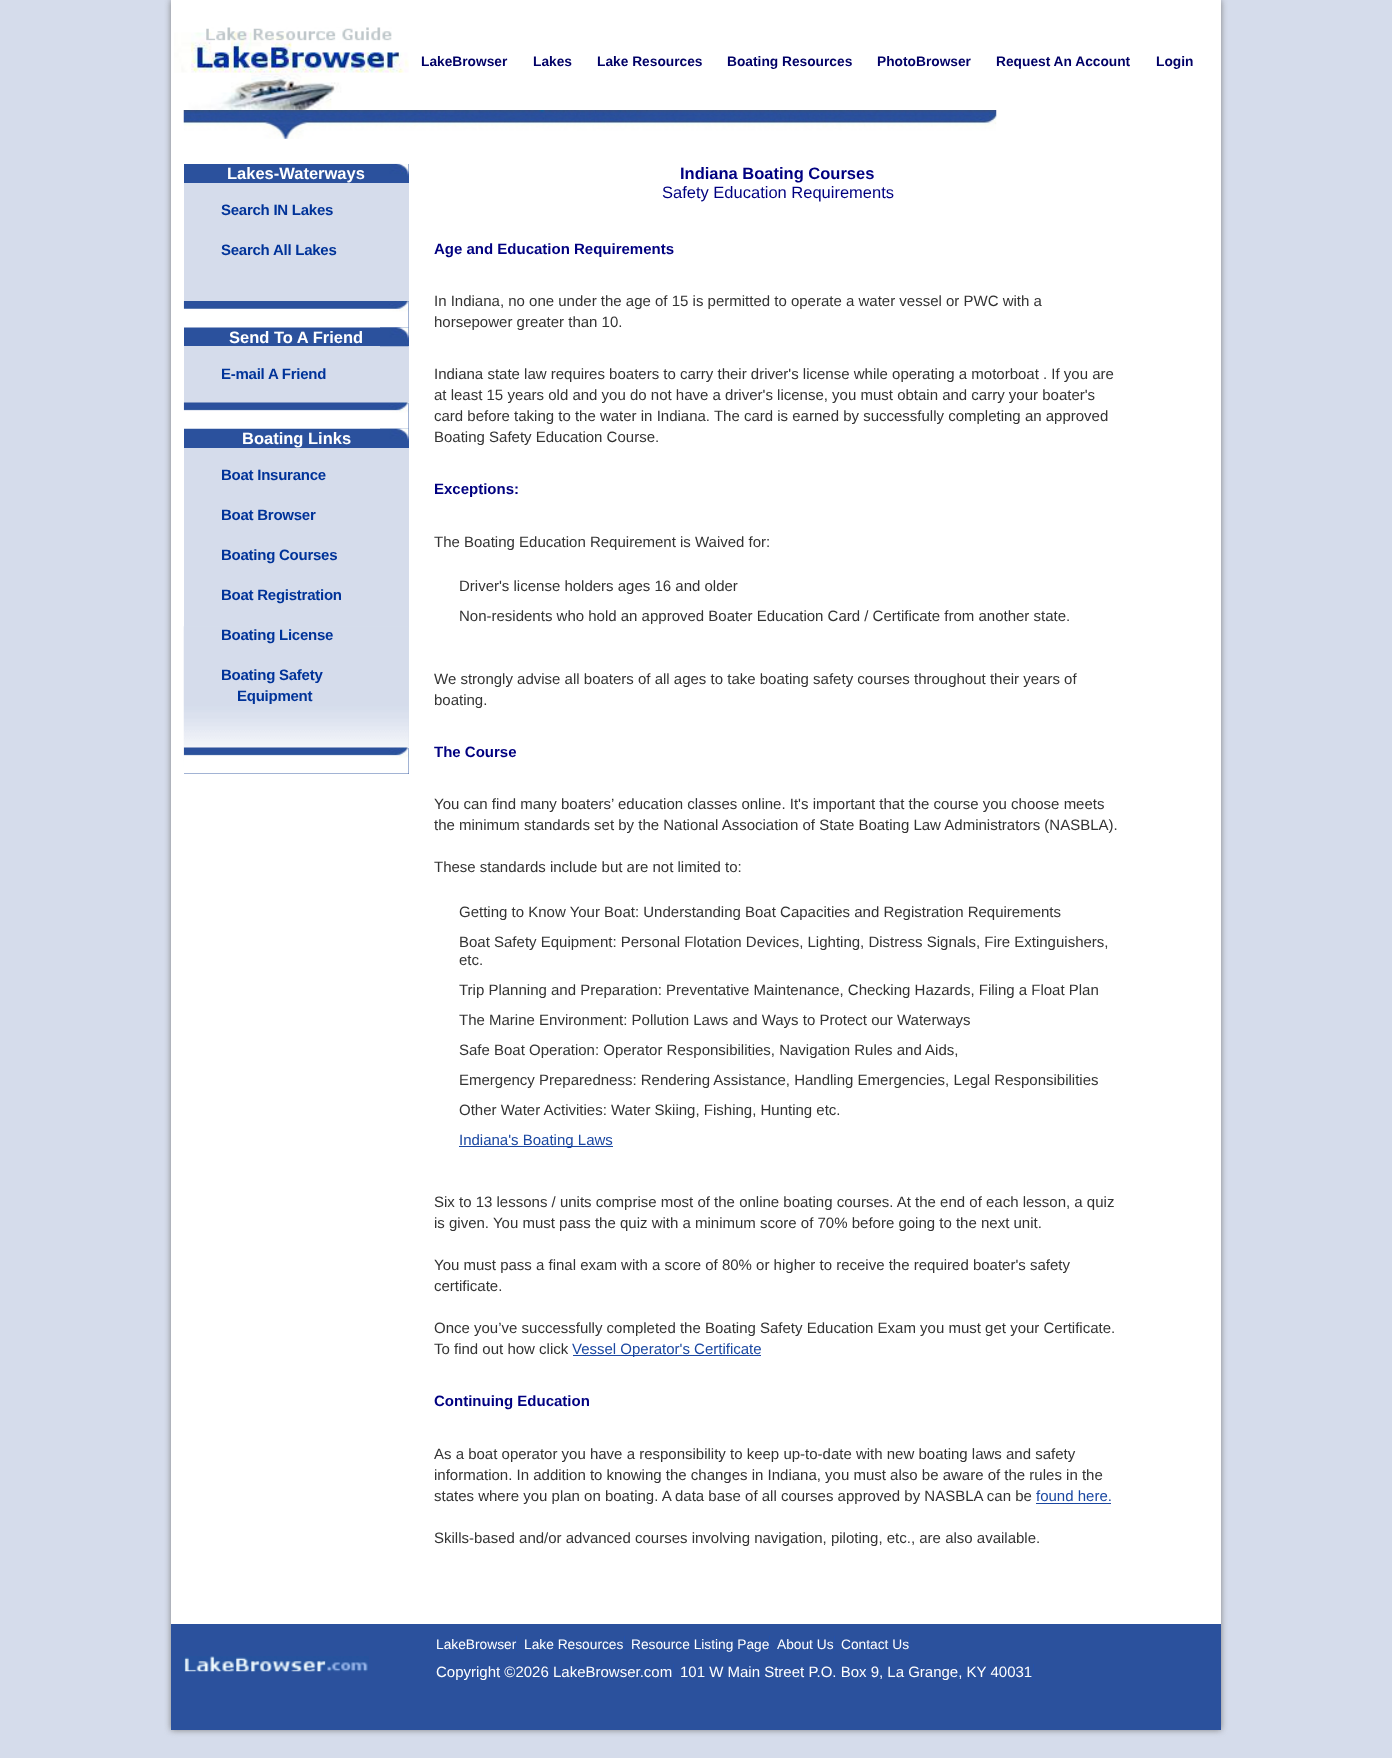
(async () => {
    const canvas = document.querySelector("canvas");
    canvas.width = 1392;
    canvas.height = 1758;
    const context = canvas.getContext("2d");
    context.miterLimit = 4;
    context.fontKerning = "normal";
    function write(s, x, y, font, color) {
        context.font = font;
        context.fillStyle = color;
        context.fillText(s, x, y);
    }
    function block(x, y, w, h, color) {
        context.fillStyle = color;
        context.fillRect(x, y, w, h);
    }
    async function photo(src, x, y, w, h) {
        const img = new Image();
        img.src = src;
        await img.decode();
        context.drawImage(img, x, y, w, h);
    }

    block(0, 0, 1392, 1758, "rgb(213, 220, 235)");
    context.fillStyle = "rgb(128, 128, 128)";
    context.filter = "blur(3px)";
    context.beginPath();
    context.rect(171, 0, 1050, 1730);
    context.fill();
    context.filter = "none";
    block(171, 0, 1050, 1624, "rgb(255, 255, 255)");
    await photo("media/1.png", 174, 27, 235, 83);
    write("LakeBrowser", 421, 66, "bold 13.75px Liberation Sans", "rgb(0, 0, 102)");
    write("Lakes", 533, 66, "bold 13.75px Liberation Sans", "rgb(0, 0, 102)");
    write("Lake Resources", 597, 66, "bold 13.75px Liberation Sans", "rgb(0, 0, 102)");
    write("Boating Resources", 727, 66, "bold 13.75px Liberation Sans", "rgb(0, 0, 102)");
    write("PhotoBrowser", 877, 66, "bold 13.75px Liberation Sans", "rgb(0, 0, 102)");
    write("Request An Account", 996, 66, "bold 13.75px Liberation Sans", "rgb(0, 0, 102)");
    write("Login", 1156, 66, "bold 13.75px Liberation Sans", "rgb(0, 0, 102)");
    await photo("media/2.png", 183, 110, 814, 29);
    block(184, 183, 225, 565, "rgb(213, 220, 235)");
    await photo("media/3.png", 183, 626, 226, 148);
    block(184, 164, 225, 19, "rgb(43, 81, 157)");
    await photo("media/4.png", 380, 163, 29, 13);
    write("Lakes-Waterways", 227, 179, "bold 16.5px Liberation Sans", "rgb(255, 255, 255)");
    context.letterSpacing = "-0.25px";
    write("Search IN Lakes", 221, 215, "bold 15px Liberation Sans", "rgb(0, 51, 153)");
    write("Search All Lakes", 221, 255, "bold 15px Liberation Sans", "rgb(0, 51, 153)");
    block(184, 301, 225, 45, "rgb(43, 81, 157)");
    await photo("media/5.png", 183, 301, 226, 27);
    await photo("media/6.png", 380, 327, 29, 20);
    context.letterSpacing = "0px";
    write("Send To A Friend", 229, 343, "bold 16.5px Liberation Sans", "rgb(255, 255, 255)");
    context.letterSpacing = "-0.25px";
    write("E-mail A Friend", 221, 379, "bold 15px Liberation Sans", "rgb(0, 51, 153)");
    block(184, 403, 225, 45, "rgb(43, 81, 157)");
    await photo("media/7.png", 183, 402, 226, 27);
    await photo("media/8.png", 380, 428, 29, 13);
    context.letterSpacing = "0px";
    write("Boating Links", 242, 444, "bold 16.5px Liberation Sans", "rgb(255, 255, 255)");
    context.letterSpacing = "-0.25px";
    write("Boat Insurance", 221, 480, "bold 15px Liberation Sans", "rgb(0, 51, 153)");
    write("Boat Browser", 221, 520, "bold 15px Liberation Sans", "rgb(0, 51, 153)");
    write("Boating Courses", 221, 560, "bold 15px Liberation Sans", "rgb(0, 51, 153)");
    write("Boat Registration", 221, 600, "bold 15px Liberation Sans", "rgb(0, 51, 153)");
    write("Boating License", 221, 640, "bold 15px Liberation Sans", "rgb(0, 51, 153)");
    write("Boating Safety", 221, 680, "bold 15px Liberation Sans", "rgb(0, 51, 153)");
    write("Equipment", 237, 701, "bold 15px Liberation Sans", "rgb(0, 51, 153)");
    block(184, 748, 225, 26, "rgb(43, 81, 157)");
    await photo("media/9.png", 183, 747, 226, 27);
    context.letterSpacing = "0px";
    write("Indiana Boating Courses", 680, 179, "bold 16.5px Liberation Sans", "rgb(0, 0, 128)");
    write("Safety Education Requirements", 662, 198, "16.5px Liberation Sans", "rgb(0, 0, 128)");
    write("Age and Education Requirements", 434, 254, "bold 15px Liberation Sans", "rgb(0, 0, 128)");
    write("In Indiana, no one under the age of 15 is permitted to operate a water vessel or PWC with a", 434, 306, "15px Liberation Sans", "rgb(51, 51, 51)");
    write("horsepower greater than 10.", 434, 327, "15px Liberation Sans", "rgb(51, 51, 51)");
    write("Indiana state law requires boaters to carry their driver's license while operating a motorboat . If you are", 434, 379, "15px Liberation Sans", "rgb(51, 51, 51)");
    write("at least 15 years old and you do not have a driver's license, you must obtain and carry your boater's", 434, 400, "15px Liberation Sans", "rgb(51, 51, 51)");
    write("card before taking to the water in Indiana. The card is earned by successfully completing an approved", 434, 421, "15px Liberation Sans", "rgb(51, 51, 51)");
    write("Boating Safety Education Course.", 434, 442, "15px Liberation Sans", "rgb(51, 51, 51)");
    write("Exceptions:", 434, 494, "bold 15px Liberation Sans", "rgb(0, 0, 128)");
    write("The Boating Education Requirement is Waived for:", 434, 547, "15px Liberation Sans", "rgb(51, 51, 51)");
    write("Driver's license holders ages 16 and older", 459, 591, "15px Liberation Sans", "rgb(51, 51, 51)");
    write("Non-residents who hold an approved Boater Education Card / Certificate from another state.", 459, 621, "15px Liberation Sans", "rgb(51, 51, 51)");
    write("We strongly advise all boaters of all ages to take boating safety courses throughout their years of", 434, 684, "15px Liberation Sans", "rgb(51, 51, 51)");
    write("boating.", 434, 705, "15px Liberation Sans", "rgb(51, 51, 51)");
    write("The Course", 434, 757, "bold 15px Liberation Sans", "rgb(0, 0, 128)");
    write("You can find many boaters’ education classes online. It's important that the course you choose meets", 434, 809, "15px Liberation Sans", "rgb(51, 51, 51)");
    write("the minimum standards set by the National Association of State Boating Law Administrators (NASBLA).", 434, 830, "15px Liberation Sans", "rgb(51, 51, 51)");
    write("These standards include but are not limited to:", 434, 872, "15px Liberation Sans", "rgb(51, 51, 51)");
    write("Getting to Know Your Boat: Understanding Boat Capacities and Registration Requirements", 459, 917, "15px Liberation Sans", "rgb(51, 51, 51)");
    write("Boat Safety Equipment: Personal Flotation Devices, Lighting, Distress Signals, Fire Extinguishers,", 459, 947, "15px Liberation Sans", "rgb(51, 51, 51)");
    write("etc.", 459, 965, "15px Liberation Sans", "rgb(51, 51, 51)");
    write("Trip Planning and Preparation: Preventative Maintenance, Checking Hazards, Filing a Float Plan", 459, 995, "15px Liberation Sans", "rgb(51, 51, 51)");
    write("The Marine Environment: Pollution Laws and Ways to Protect our Waterways", 459, 1025, "15px Liberation Sans", "rgb(51, 51, 51)");
    write("Safe Boat Operation: Operator Responsibilities, Navigation Rules and Aids,", 459, 1055, "15px Liberation Sans", "rgb(51, 51, 51)");
    write("Emergency Preparedness: Rendering Assistance, Handling Emergencies, Legal Responsibilities", 459, 1085, "15px Liberation Sans", "rgb(51, 51, 51)");
    write("Other Water Activities: Water Skiing, Fishing, Hunting etc.", 459, 1115, "15px Liberation Sans", "rgb(51, 51, 51)");
    block(459, 1146, 154, 1, "rgb(26, 71, 161)");
    write("Indiana's Boating Laws", 459, 1145, "15px Liberation Sans", "rgb(26, 71, 161)");
    write("Six to 13 lessons / units comprise most of the online boating courses. At the end of each lesson, a quiz", 434, 1207, "15px Liberation Sans", "rgb(51, 51, 51)");
    write("is given. You must pass the quiz with a minimum score of 70% before going to the next unit.", 434, 1228, "15px Liberation Sans", "rgb(51, 51, 51)");
    write("You must pass a final exam with a score of 80% or higher to receive the required boater's safety", 434, 1270, "15px Liberation Sans", "rgb(51, 51, 51)");
    write("certificate.", 434, 1291, "15px Liberation Sans", "rgb(51, 51, 51)");
    write("Once you’ve successfully completed the Boating Safety Education Exam you must get your Certificate.", 434, 1333, "15px Liberation Sans", "rgb(51, 51, 51)");
    write("To find out how click", 434, 1354, "15px Liberation Sans", "rgb(51, 51, 51)");
    block(573, 1355, 188, 1, "rgb(26, 71, 161)");
    write("Vessel Operator's Certificate", 572, 1354, "15px Liberation Sans", "rgb(26, 71, 161)");
    write("Continuing Education", 434, 1406, "bold 15px Liberation Sans", "rgb(0, 0, 128)");
    write("As a boat operator you have a responsibility to keep up-to-date with new boating laws and safety", 434, 1459, "15px Liberation Sans", "rgb(51, 51, 51)");
    write("information. In addition to knowing the changes in Indiana, you must also be aware of the rules in the", 434, 1480, "15px Liberation Sans", "rgb(51, 51, 51)");
    write("states where you plan on boating. A data base of all courses approved by NASBLA can be", 434, 1501, "15px Liberation Sans", "rgb(51, 51, 51)");
    write("found here.", 1036, 1501, "15px Liberation Sans", "rgb(26, 71, 161)");
    block(1036, 1503, 75, 1, "rgb(26, 71, 161)");
    write("Skills-based and/or advanced courses involving navigation, piloting, etc., are also available.", 434, 1543, "15px Liberation Sans", "rgb(51, 51, 51)");
    block(171, 1624, 1050, 106, "rgb(43, 81, 157)");
    block(516, 1636, 1, 15, "rgb(37, 81, 167)");
    write("LakeBrowser", 436, 1649, "13.75px Liberation Sans", "rgb(255, 255, 255)");
    block(624, 1636, 1, 15, "rgb(37, 81, 167)");
    write("Lake Resources", 524, 1649, "13.75px Liberation Sans", "rgb(255, 255, 255)");
    block(769, 1636, 1, 15, "rgb(37, 81, 167)");
    write("Resource Listing Page", 631, 1649, "13.75px Liberation Sans", "rgb(255, 255, 255)");
    block(834, 1636, 1, 15, "rgb(37, 81, 167)");
    write("About Us", 777, 1649, "13.75px Liberation Sans", "rgb(255, 255, 255)");
    block(909, 1636, 1, 15, "rgb(37, 81, 167)");
    write("Contact Us", 841, 1649, "13.75px Liberation Sans", "rgb(255, 255, 255)");
    await photo("media/10.png", 182, 1656, 187, 16);
    block(673, 1664, 1, 17, "rgb(37, 81, 167)");
    write("Copyright ©2026 LakeBrowser.com", 436, 1677, "15px Liberation Sans", "rgb(255, 255, 255)");
    block(1033, 1664, 1, 17, "rgb(37, 81, 167)");
    write("101 W Main Street P.O. Box 9, La Grange, KY 40031", 680, 1677, "15px Liberation Sans", "rgb(255, 255, 255)");
})();
